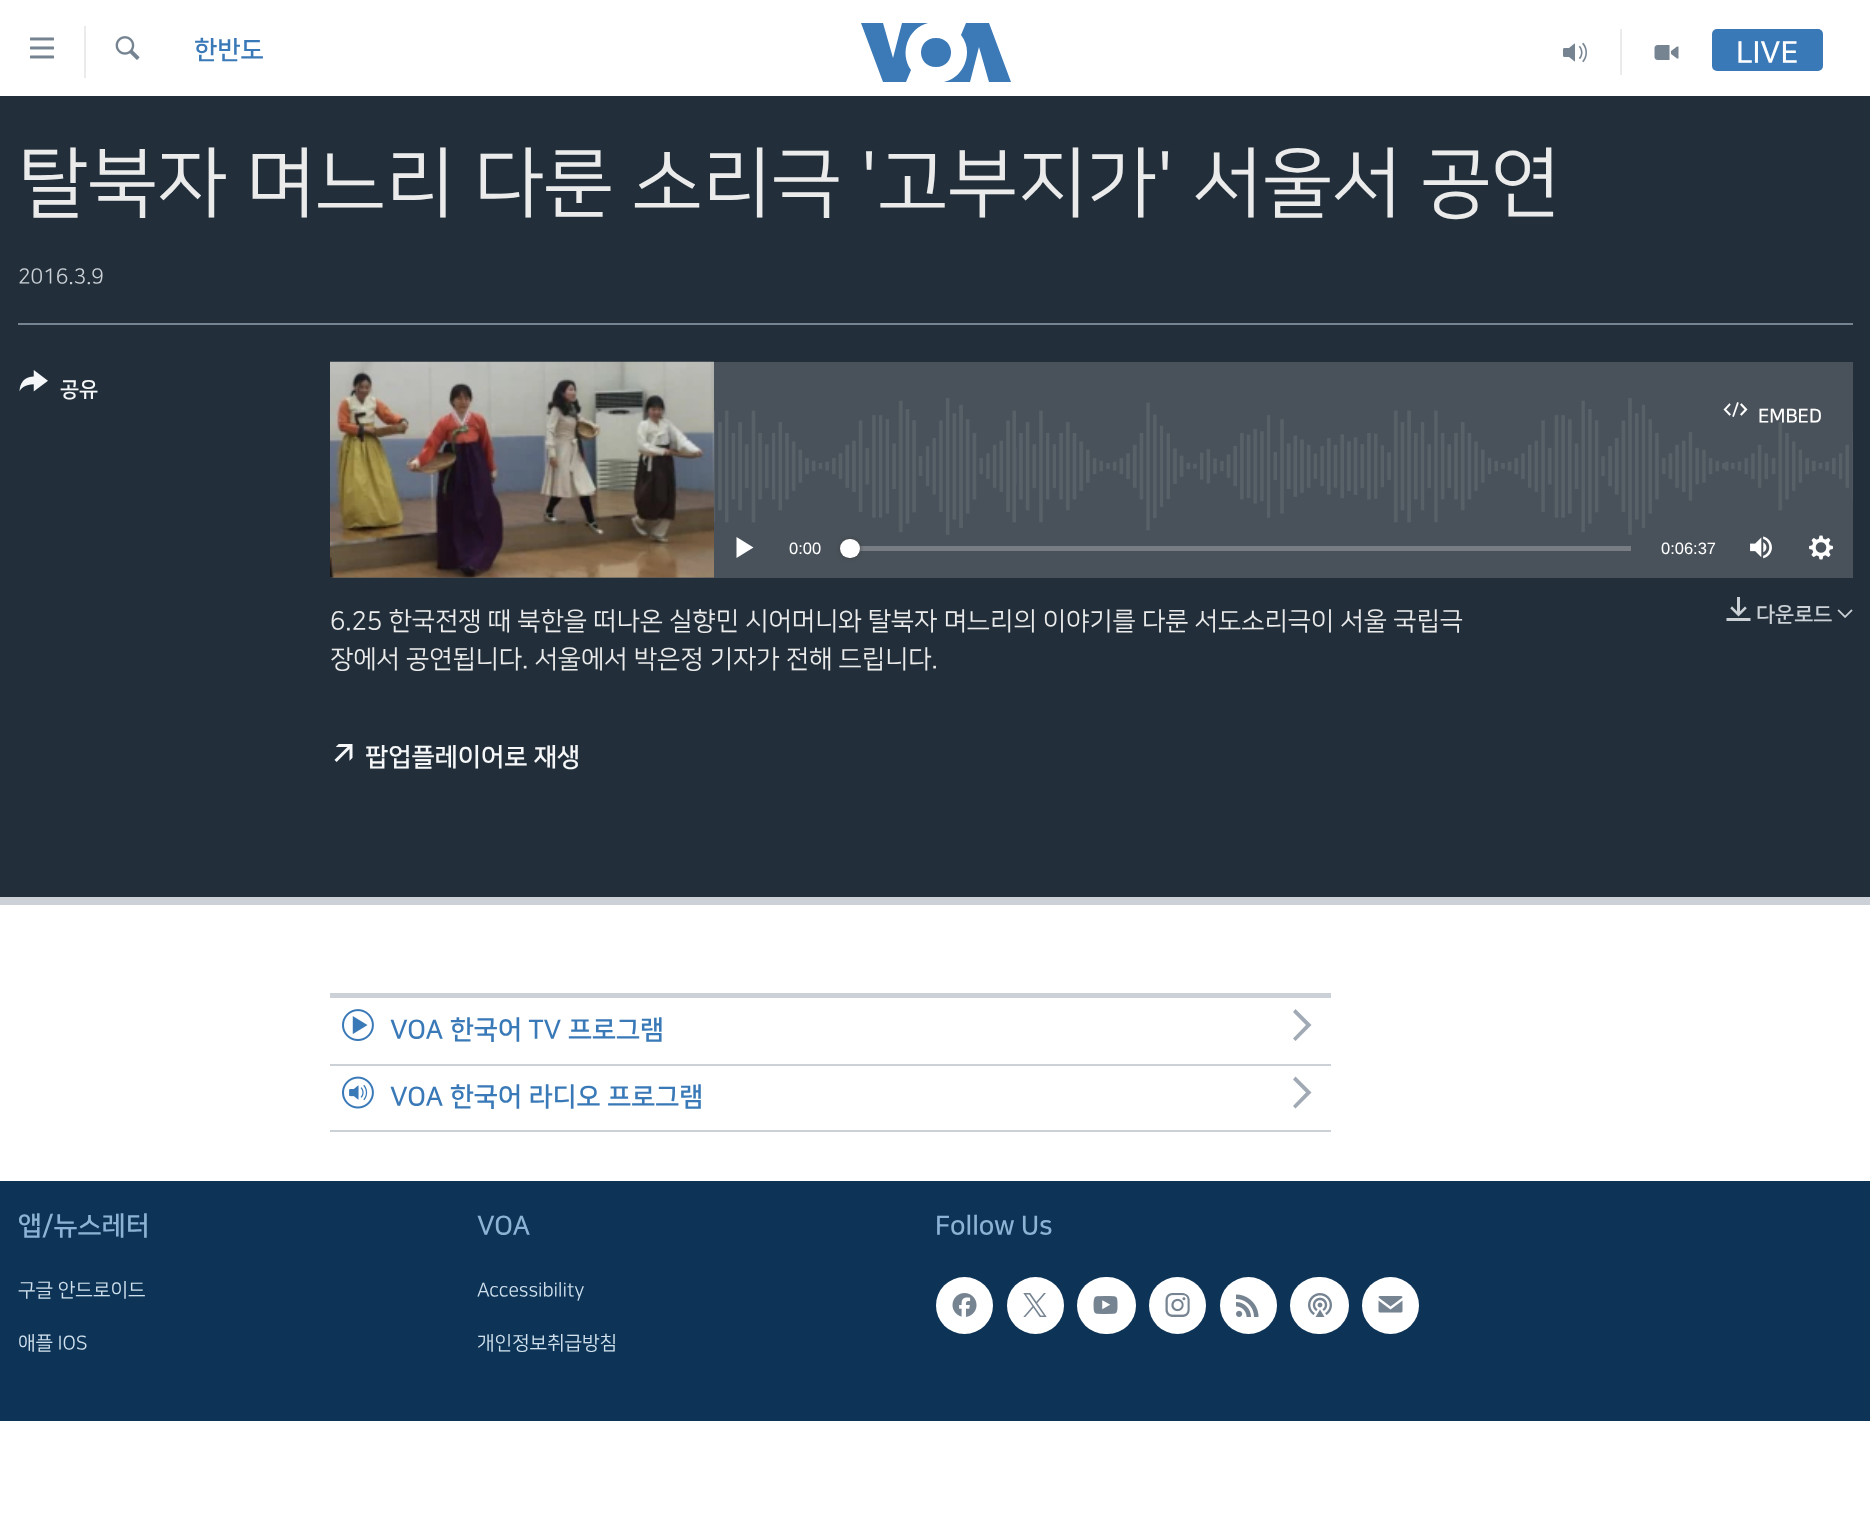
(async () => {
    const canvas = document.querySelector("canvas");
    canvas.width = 1870;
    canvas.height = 1520;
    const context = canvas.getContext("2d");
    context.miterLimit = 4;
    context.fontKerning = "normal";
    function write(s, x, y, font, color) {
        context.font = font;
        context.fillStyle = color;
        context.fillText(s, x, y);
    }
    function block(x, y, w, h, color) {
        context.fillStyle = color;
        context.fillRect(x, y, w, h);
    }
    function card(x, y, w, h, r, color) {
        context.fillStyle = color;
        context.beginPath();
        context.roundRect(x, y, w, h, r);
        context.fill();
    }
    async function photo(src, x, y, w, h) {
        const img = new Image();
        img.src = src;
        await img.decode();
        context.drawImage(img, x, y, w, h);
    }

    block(0, 0, 1870, 1520, "rgb(255, 255, 255)");
    await photo("media/1.png", 30, 37, 24, 22);
    block(84, 26, 2, 52, "rgb(235, 235, 235)");
    await photo("media/2.png", 115, 36, 25, 24);
    write("한반도", 194, 58, "bold 25.5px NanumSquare", "rgb(58, 121, 183)");
    context.fillStyle = "rgb(59, 121, 183)";
    context.beginPath();
    context.moveTo(911, 70);
    context.lineTo(906, 82);
    context.lineTo(883, 82);
    context.lineTo(861, 23);
    context.lineTo(883, 23);
    context.lineTo(893, 58);
    context.lineTo(902, 23);
    context.lineTo(928, 23);
    context.bezierCurveTo(908, 28, 899, 53, 911, 70);
    context.closePath();
    context.moveTo(936, 38);
    context.bezierCurveTo(916, 38, 916, 67, 936, 67);
    context.bezierCurveTo(956, 67, 956, 38, 936, 38);
    context.closePath();
    context.moveTo(967, 52);
    context.bezierCurveTo(967, 67, 957, 79, 944, 82);
    context.lineTo(970, 82);
    context.lineTo(979, 47);
    context.lineTo(989, 82);
    context.lineTo(1011, 82);
    context.lineTo(989, 23);
    context.lineTo(966, 23);
    context.lineTo(961, 35);
    context.bezierCurveTo(965, 40, 967, 46, 967, 52);
    context.closePath();
    context.fill();
    block(1620, 29, 2, 46, "rgb(235, 235, 235)");
    await photo("media/3.png", 1563, 42, 24, 21);
    await photo("media/4.png", 1654, 45, 25, 15);
    card(1712, 29, 111, 42, 5, "rgb(58, 121, 183)");
    write("LIVE", 1736, 62, "bold 30px NanumSquare", "rgb(255, 255, 255)");
    block(0, 96, 1870, 801, "rgb(34, 47, 58)");
    block(0, 897, 1870, 8, "rgb(203, 209, 214)");
    write("탈북자 며느리 다룬 소리극 '고부지가' 서울서 공연", 18, 207, "76.5px NanumSquare", "rgb(235, 235, 235)");
    write("2016.3.9", 18, 283, "21px NanumSquare", "rgb(203, 209, 214)");
    block(18, 323, 1835, 2, "rgb(118, 132, 146)");
    await photo("media/5.png", 19, 370, 29, 22);
    write("공유", 60, 396, "bold 21px NanumSquare", "rgb(246, 247, 248)");
    block(330, 362, 1523, 216, "rgb(73, 82, 90)");
    await photo("media/6.png", 714, 398, 1139, 137);
    await photo("media/7.png", 330, 361, 384, 217);
    await photo("media/8.png", 1723, 402, 25, 15);
    write("EMBED", 1758, 422, "bold 19px NanumSquare", "rgb(255, 255, 255)");
    context.beginPath();
    context.moveTo(736.5, 558);
    context.lineTo(753.5, 547.5);
    context.lineTo(736.5, 537);
    context.closePath();
    context.fill();
    write("0:00", 789, 554, "16.5px Liberation Sans", "rgb(255, 255, 255)");
    block(851, 546, 780, 5, "rgb(119, 125, 131)");
    context.fillStyle = "rgb(65, 65, 68)";
    context.filter = "blur(2px)";
    context.beginPath();
    context.roundRect(840, 539, 20, 19, 9.5);
    context.fill();
    context.filter = "none";
    card(840, 539, 20, 19, 9.5, "rgb(255, 255, 255)");
    write("0:06:37", 1661, 554, "16.5px Liberation Sans", "rgb(255, 255, 255)");
    await photo("media/9.png", 1750, 536, 22, 23);
    await photo("media/10.png", 1809, 535, 24, 25);
    write("6.25 한국전쟁 때 북한을 떠나온 실향민 시어머니와 탈북자 며느리의 이야기를 다룬 서도소리극이 서울 국립극", 330, 629, "25.5px NanumSquare", "rgb(235, 235, 235)");
    write("장에서 공연됩니다. 서울에서 박은정 기자가 전해 드립니다.", 330, 667, "25.5px NanumSquare", "rgb(235, 235, 235)");
    await photo("media/11.png", 1726, 597, 25, 24);
    write("다운로드", 1756, 621, "bold 21px NanumSquare", "rgb(203, 209, 214)");
    await photo("media/12.png", 1837, 609, 16, 9);
    await photo("media/13.png", 334, 744, 19, 18);
    write("팝업플레이어로 재생", 365, 765, "bold 25.5px NanumSquare", "rgb(246, 247, 248)");
    block(330, 993, 1001, 5, "rgb(203, 209, 214)");
    block(330, 1064, 1001, 2, "rgb(203, 209, 214)");
    await photo("media/14.png", 342, 1009, 32, 32);
    write("VOA 한국어 TV 프로그램", 390, 1038, "bold 26.4px NanumSquare", "rgb(58, 121, 183)");
    context.fillStyle = "rgb(161, 170, 180)";
    context.beginPath();
    context.moveTo(1295.5, 1041);
    context.lineTo(1311.5, 1025);
    context.lineTo(1295.5, 1009);
    context.lineTo(1293, 1012);
    context.lineTo(1306, 1025);
    context.lineTo(1293, 1038.5);
    context.closePath();
    context.fill();
    block(330, 1130, 1001, 2, "rgb(203, 209, 214)");
    await photo("media/15.png", 342, 1076, 32, 33);
    write("VOA 한국어 라디오 프로그램", 390, 1105, "bold 26.4px NanumSquare", "rgb(58, 121, 183)");
    context.fillStyle = "rgb(161, 170, 180)";
    context.beginPath();
    context.moveTo(1295.5, 1108.5);
    context.lineTo(1311.5, 1092.5);
    context.lineTo(1295.5, 1076.5);
    context.lineTo(1293, 1079.5);
    context.lineTo(1306, 1092.5);
    context.lineTo(1293, 1106);
    context.closePath();
    context.fill();
    block(0, 1181, 1870, 240, "rgb(13, 52, 86)");
    write("앱/뉴스레터", 18, 1234, "bold 26.4px NanumSquare", "rgb(141, 179, 212)");
    write("구글 안드로이드", 18, 1296, "19.25px NanumSquare", "rgb(209, 225, 238)");
    write("애플 IOS", 18, 1349, "19.25px NanumSquare", "rgb(209, 225, 238)");
    write("VOA", 477, 1234, "bold 26.4px NanumSquare", "rgb(141, 179, 212)");
    write("Accessibility", 477, 1296, "19.25px NanumSquare", "rgb(209, 225, 238)");
    write("개인정보취급방침", 477, 1349, "19.25px NanumSquare", "rgb(209, 225, 238)");
    write("Follow Us", 935, 1234, "bold 26.4px NanumSquare", "rgb(141, 179, 212)");
    context.fillStyle = "rgb(255, 255, 255)";
    context.beginPath();
    context.arc(964.5, 1305.5, 28.5, 0, Math.PI * 2);
    context.fill();
    await photo("media/16.png", 952, 1293, 25, 24);
    context.beginPath();
    context.arc(1035.5, 1305.5, 28.5, 0, Math.PI * 2);
    context.fill();
    await photo("media/17.png", 1023, 1293, 24, 24);
    card(1077, 1277, 59, 57, 28.5, "rgb(255, 255, 255)");
    await photo("media/18.png", 1093, 1296, 25, 18);
    context.beginPath();
    context.arc(1177.5, 1305.5, 28.5, 0, Math.PI * 2);
    context.fill();
    await photo("media/19.png", 1165, 1293, 25, 24);
    context.beginPath();
    context.arc(1248.5, 1305.5, 28.5, 0, Math.PI * 2);
    context.fill();
    await photo("media/20.png", 1236, 1294, 23, 23);
    card(1290, 1277, 59, 57, 28.5, "rgb(255, 255, 255)");
    await photo("media/21.png", 1308, 1293, 24, 24);
    context.beginPath();
    context.arc(1390.5, 1305.5, 28.5, 0, Math.PI * 2);
    context.fill();
    await photo("media/22.png", 1378, 1296, 25, 17);
})();
